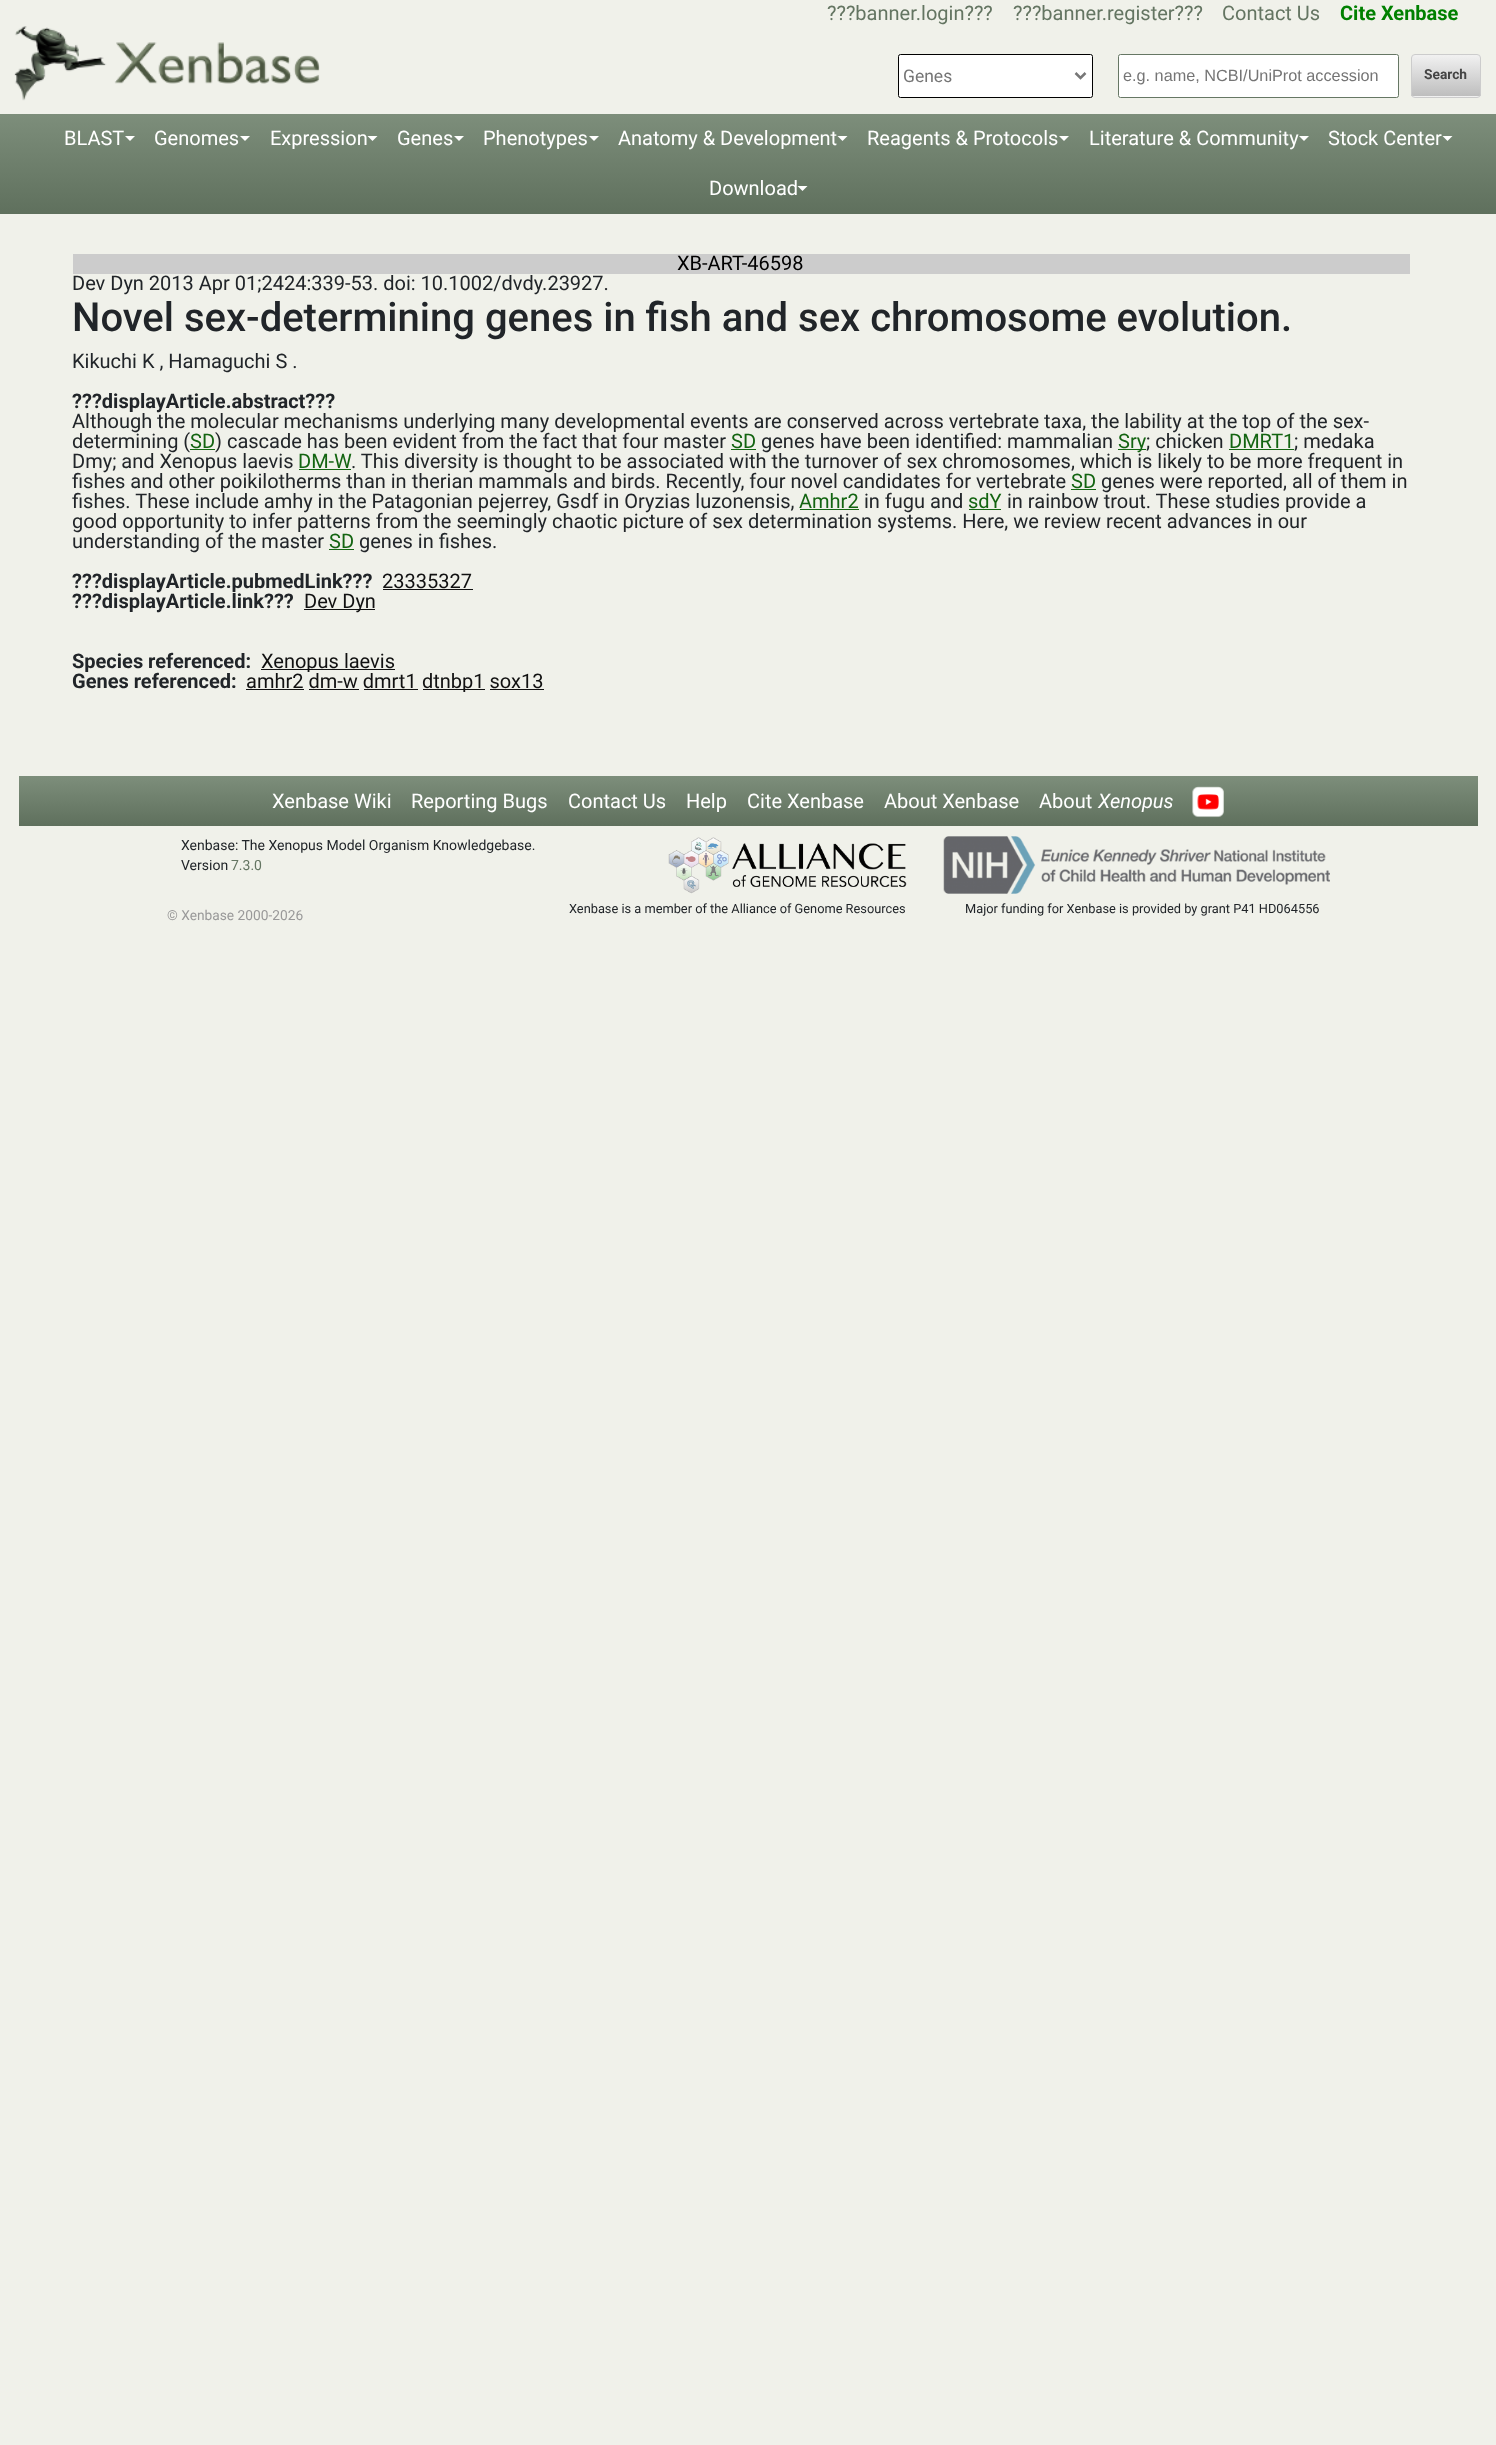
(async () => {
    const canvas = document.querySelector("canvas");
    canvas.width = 1496;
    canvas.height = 2445;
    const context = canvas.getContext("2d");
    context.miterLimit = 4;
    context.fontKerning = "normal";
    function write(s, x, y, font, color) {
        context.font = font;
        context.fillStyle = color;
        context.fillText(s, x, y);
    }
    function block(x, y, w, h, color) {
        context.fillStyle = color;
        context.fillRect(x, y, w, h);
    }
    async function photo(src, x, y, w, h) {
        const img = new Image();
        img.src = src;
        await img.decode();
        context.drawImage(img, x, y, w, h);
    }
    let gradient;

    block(0, 0, 1496, 2445, "rgb(240, 241, 234)");
    write("???banner.login???", 827, 20, "20px Roboto", "rgb(100, 117, 98)");
    write("???banner.register???", 1013, 20, "20px Roboto", "rgb(100, 117, 98)");
    write("Contact Us", 1222, 20, "20px Roboto", "rgb(100, 117, 98)");
    write("Cite Xenbase", 1340, 20, "bold 20px Roboto", "rgb(0, 128, 0)");
    await photo("media/1.png", 14, 26, 306, 75);
    context.fillStyle = "rgb(255, 255, 255)";
    context.beginPath();
    context.roundRect(898.5, 54.5, 194, 43, 2);
    context.fill();
    context.strokeStyle = "rgb(0, 0, 0)";
    context.stroke();
    context.beginPath();
    context.moveTo(1075.5, 73);
    context.lineTo(1080.5, 78);
    context.lineTo(1085.5, 73);
    context.strokeStyle = "rgb(119, 119, 119)";
    context.lineWidth = 2.5;
    context.stroke();
    write("Genes", 903, 82, "17.5px Roboto", "rgb(117, 117, 117)");
    context.fillStyle = "rgb(255, 255, 255)";
    context.beginPath();
    context.roundRect(1118.5, 54.5, 280, 43, 2);
    context.fill();
    context.strokeStyle = "rgb(102, 119, 100)";
    context.lineWidth = 1;
    context.stroke();
    write("e.g. name, NCBI/UniProt accession", 1123, 81, "16.25px Liberation Sans", "rgb(117, 117, 117)");
    context.save();
    context.beginPath();
    context.roundRect(1411, 54, 70, 44, 4);
    context.clip();
    gradient = context.createLinearGradient(1446, 55, 1446, 96);
    gradient.addColorStop(0, "rgb(241, 241, 241)");
    gradient.addColorStop(1, "rgb(190, 190, 190)");
    context.fillStyle = gradient;
    context.fillRect(1411, 55, 70, 41);
    gradient = context.createLinearGradient(1446, 96, 1446, 138);
    gradient.addColorStop(0, "rgb(241, 241, 241)");
    gradient.addColorStop(1, "rgb(190, 190, 190)");
    context.fillStyle = gradient;
    context.fillRect(1411, 96, 70, 2);
    context.restore();
    context.beginPath();
    context.roundRect(1411.5, 54.5, 69, 43, 3.5);
    context.strokeStyle = "rgb(204, 204, 204)";
    context.stroke();
    write("Search", 1424, 79, "bold 13.75px Roboto", "rgb(68, 68, 68)");
    gradient = context.createLinearGradient(748, 114, 748, 214);
    gradient.addColorStop(0, "rgb(125, 142, 123)");
    gradient.addColorStop(1, "rgb(95, 112, 93)");
    context.fillStyle = gradient;
    context.fillRect(0, 114, 1496, 100);
    write("BLAST", 64, 145, "20px Roboto", "rgb(255, 255, 255)");
    context.beginPath();
    context.moveTo(125, 136);
    context.lineTo(135, 136);
    context.lineTo(130, 141);
    context.closePath();
    context.fill();
    write("Genomes", 154, 145, "20px Roboto", "rgb(255, 255, 255)");
    context.beginPath();
    context.moveTo(240, 136);
    context.lineTo(250, 136);
    context.lineTo(245, 141);
    context.closePath();
    context.fill();
    write("Expression", 270, 145, "20px Roboto", "rgb(255, 255, 255)");
    context.beginPath();
    context.moveTo(367.5, 136);
    context.lineTo(377.5, 136);
    context.lineTo(372.5, 141);
    context.closePath();
    context.fill();
    write("Genes", 397, 145, "20px Roboto", "rgb(255, 255, 255)");
    context.beginPath();
    context.moveTo(454, 136);
    context.lineTo(464, 136);
    context.lineTo(459, 141);
    context.closePath();
    context.fill();
    write("Phenotypes", 483, 145, "20px Roboto", "rgb(255, 255, 255)");
    context.beginPath();
    context.moveTo(589, 136);
    context.lineTo(599, 136);
    context.lineTo(594, 141);
    context.closePath();
    context.fill();
    write("Anatomy & Development", 618, 145, "20px Roboto", "rgb(255, 255, 255)");
    context.beginPath();
    context.moveTo(837.5, 136);
    context.lineTo(847.5, 136);
    context.lineTo(842.5, 141);
    context.closePath();
    context.fill();
    write("Reagents & Protocols", 867, 145, "20px Roboto", "rgb(255, 255, 255)");
    context.beginPath();
    context.moveTo(1059, 136);
    context.lineTo(1069, 136);
    context.lineTo(1064, 141);
    context.closePath();
    context.fill();
    write("Literature & Community", 1089, 145, "20px Roboto", "rgb(255, 255, 255)");
    context.beginPath();
    context.moveTo(1299, 136);
    context.lineTo(1309, 136);
    context.lineTo(1304, 141);
    context.closePath();
    context.fill();
    write("Stock Center", 1328, 145, "20px Roboto", "rgb(255, 255, 255)");
    context.beginPath();
    context.moveTo(1442.5, 136);
    context.lineTo(1452.5, 136);
    context.lineTo(1447.5, 141);
    context.closePath();
    context.fill();
    write("Download", 709, 195, "20px Roboto", "rgb(255, 255, 255)");
    context.beginPath();
    context.moveTo(797.5, 186);
    context.lineTo(807.5, 186);
    context.lineTo(802.5, 191);
    context.closePath();
    context.fill();
    block(73, 254, 1337, 20, "rgb(204, 204, 204)");
    write("XB-ART-46598", 677, 270, "20px Roboto", "rgb(0, 0, 0)");
    write("Dev Dyn 2013 Apr 01;2424:339-53. doi: 10.1002/dvdy.23927.", 72, 290, "20px Roboto", "rgb(33, 37, 41)");
    write("Novel sex-determining genes in fish and sex chromosome evolution.", 72, 331, "500 40px Roboto", "rgb(33, 37, 41)");
    write("Kikuchi K , Hamaguchi S .", 72, 368, "20px Roboto", "rgb(33, 37, 41)");
    write("???displayArticle.abstract???", 72, 408, "bold 20px Roboto", "rgb(33, 37, 41)");
    write("Although the molecular mechanisms underlying many developmental events are conserved across vertebrate taxa, the lability at the top of the sex-", 72, 428, "20px Roboto", "rgb(33, 37, 41)");
    write("determining (", 72, 448, "20px Roboto", "rgb(33, 37, 41)");
    write("SD", 190, 448, "20px Roboto", "rgb(19, 100, 17)");
    block(190, 449, 25, 1, "rgb(19, 100, 17)");
    write(") cascade has been evident from the fact that four master", 215, 448, "20px Roboto", "rgb(33, 37, 41)");
    write("SD", 731, 448, "20px Roboto", "rgb(19, 100, 17)");
    block(731, 449, 25, 1, "rgb(19, 100, 17)");
    write("genes have been identified: mammalian", 761, 448, "20px Roboto", "rgb(33, 37, 41)");
    block(1118, 449, 28, 1, "rgb(19, 100, 17)");
    write("Sry", 1118, 448, "20px Roboto", "rgb(19, 100, 17)");
    write("; chicken", 1146, 448, "20px Roboto", "rgb(33, 37, 41)");
    write("DMRT1", 1229, 448, "20px Roboto", "rgb(19, 100, 17)");
    block(1229, 449, 65, 1, "rgb(19, 100, 17)");
    write("; medaka", 1294, 448, "20px Roboto", "rgb(33, 37, 41)");
    write("Dmy; and Xenopus laevis", 72, 468, "20px Roboto", "rgb(33, 37, 41)");
    write("DM-W", 298, 468, "20px Roboto", "rgb(19, 100, 17)");
    block(299, 469, 52, 1, "rgb(19, 100, 17)");
    write(". This diversity is thought to be associated with the turnover of sex chromosomes, which is likely to be more frequent in", 351, 468, "20px Roboto", "rgb(33, 37, 41)");
    write("fishes and other poikilotherms than in therian mammals and birds. Recently, four novel candidates for vertebrate", 72, 488, "20px Roboto", "rgb(33, 37, 41)");
    write("SD", 1071, 488, "20px Roboto", "rgb(19, 100, 17)");
    block(1071, 489, 25, 1, "rgb(19, 100, 17)");
    write("genes were reported, all of them in", 1101, 488, "20px Roboto", "rgb(33, 37, 41)");
    write("fishes. These include amhy in the Patagonian pejerrey, Gsdf in Oryzias luzonensis,", 72, 508, "20px Roboto", "rgb(33, 37, 41)");
    write("Amhr2", 799, 508, "20px Roboto", "rgb(19, 100, 17)");
    block(800, 509, 59, 1, "rgb(19, 100, 17)");
    write("in fugu and", 864, 508, "20px Roboto", "rgb(33, 37, 41)");
    write("sdY", 968, 508, "20px Roboto", "rgb(19, 100, 17)");
    block(969, 509, 32, 1, "rgb(19, 100, 17)");
    write("in rainbow trout. These studies provide a", 1007, 508, "20px Roboto", "rgb(33, 37, 41)");
    write("good opportunity to infer patterns from the seemingly chaotic picture of sex determination systems. Here, we review recent advances in our", 72, 528, "20px Roboto", "rgb(33, 37, 41)");
    write("understanding of the master", 72, 548, "20px Roboto", "rgb(33, 37, 41)");
    write("SD", 329, 548, "20px Roboto", "rgb(19, 100, 17)");
    block(329, 549, 25, 1, "rgb(19, 100, 17)");
    write("genes in fishes.", 359, 548, "20px Roboto", "rgb(33, 37, 41)");
    write("???displayArticle.pubmedLink???", 72, 588, "bold 20px Roboto", "rgb(33, 37, 41)");
    write("23335327", 382, 588, "20px Roboto", "rgb(17, 17, 17)");
    block(383, 589, 90, 1, "rgb(17, 17, 17)");
    write("???displayArticle.link???", 72, 608, "bold 20px Roboto", "rgb(33, 37, 41)");
    block(304, 609, 71, 1, "rgb(17, 17, 17)");
    write("Dev Dyn", 304, 608, "20px Roboto", "rgb(17, 17, 17)");
    write("Species referenced:", 72, 668, "bold 20px Roboto", "rgb(33, 37, 41)");
    block(261, 669, 134, 1, "rgb(17, 17, 17)");
    write("Xenopus laevis", 261, 668, "20px Roboto", "rgb(17, 17, 17)");
    write("Genes referenced:", 72, 688, "bold 20px Roboto", "rgb(33, 37, 41)");
    write("amhr2 dm-w dmrt1", 246, 688, "20px Roboto", "rgb(17, 17, 17)");
    block(246, 689, 58, 1, "rgb(17, 17, 17)");
    block(423, 689, 62, 1, "rgb(17, 17, 17)");
    write("dtnbp1 sox13", 422, 688, "20px Roboto", "rgb(17, 17, 17)");
    block(309, 689, 50, 1, "rgb(17, 17, 17)");
    block(364, 689, 54, 1, "rgb(17, 17, 17)");
    block(490, 689, 54, 1, "rgb(17, 17, 17)");
    gradient = context.createLinearGradient(748, 776, 748, 826);
    gradient.addColorStop(0, "rgb(125, 142, 123)");
    gradient.addColorStop(1, "rgb(95, 112, 93)");
    context.fillStyle = gradient;
    context.fillRect(19, 776, 1459, 50);
    write("Xenbase Wiki", 272, 808, "20px Roboto", "rgb(255, 255, 255)");
    write("Reporting Bugs", 411, 808, "20px Roboto", "rgb(255, 255, 255)");
    write("Contact Us", 568, 808, "20px Roboto", "rgb(255, 255, 255)");
    write("Help", 686, 808, "20px Roboto", "rgb(255, 255, 255)");
    write("Cite Xenbase", 747, 808, "20px Roboto", "rgb(255, 255, 255)");
    write("About Xenbase", 884, 808, "20px Roboto", "rgb(255, 255, 255)");
    write("About", 1039, 808, "20px Roboto", "rgb(255, 255, 255)");
    write("Xenopus", 1098, 808, "italic 20px Roboto", "rgb(255, 255, 255)");
    await photo("media/2.png", 1192, 786, 32, 32);
    write("Xenbase: The Xenopus Model Organism Knowledgebase.", 181, 850, "14px Roboto", "rgb(33, 37, 41)");
    write("Version", 181, 870, "14px Roboto", "rgb(33, 37, 41)");
    write("7.3.0", 231, 870, "14px Roboto", "rgb(100, 117, 98)");
    write("© Xenbase 2000-2026", 167, 920, "13.75px Roboto", "rgb(153, 153, 153)");
    await photo("media/3.png", 668, 837, 239, 57);
    write("Xenbase is a member of the Alliance of Genome Resources", 569, 913, "12.8px Roboto", "rgb(33, 37, 41)");
    await photo("media/4.png", 943, 836, 387, 58);
    write("Major funding for Xenbase is provided by grant P41 HD064556", 965, 913, "12.8px Roboto", "rgb(33, 37, 41)");
})();
